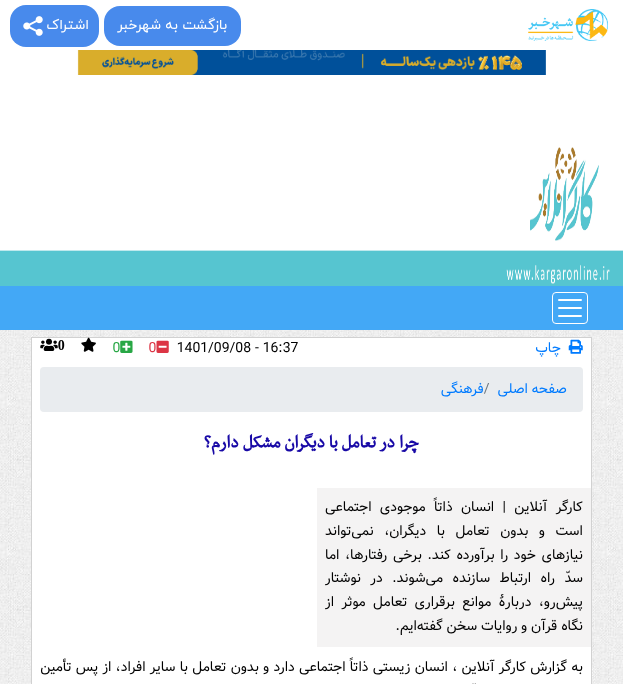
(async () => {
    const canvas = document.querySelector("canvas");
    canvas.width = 623;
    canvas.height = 690;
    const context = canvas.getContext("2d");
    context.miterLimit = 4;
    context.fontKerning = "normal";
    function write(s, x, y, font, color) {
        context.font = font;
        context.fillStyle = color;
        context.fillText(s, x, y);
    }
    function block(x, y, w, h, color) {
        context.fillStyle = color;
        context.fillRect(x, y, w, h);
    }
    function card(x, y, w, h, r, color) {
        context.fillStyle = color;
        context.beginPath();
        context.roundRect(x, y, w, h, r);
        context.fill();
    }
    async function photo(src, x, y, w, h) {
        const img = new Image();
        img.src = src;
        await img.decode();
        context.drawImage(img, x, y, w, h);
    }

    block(0, 0, 623, 690, "rgb(255, 255, 255)");
    await photo("media/1.png", 528, 9, 80, 32);
    card(104, 6, 137, 40, 16, "rgb(72, 138, 236)");
    context.direction = "rtl";
    write("بازگشت به شهرخبر", 227, 29, "14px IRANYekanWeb", "rgb(255, 255, 255)");
    card(10, 5, 89, 42, 16, "rgb(72, 138, 236)");
    write("اشتراک", 89, 29, "14px IRANYekanWeb", "rgb(255, 255, 255)");
    await photo("media/2.png", 23, 16, 20, 20);
    await photo("media/3.png", 77, 50, 469, 25);
    await photo("media/4.png", 0, 147, 623, 537);
})();
